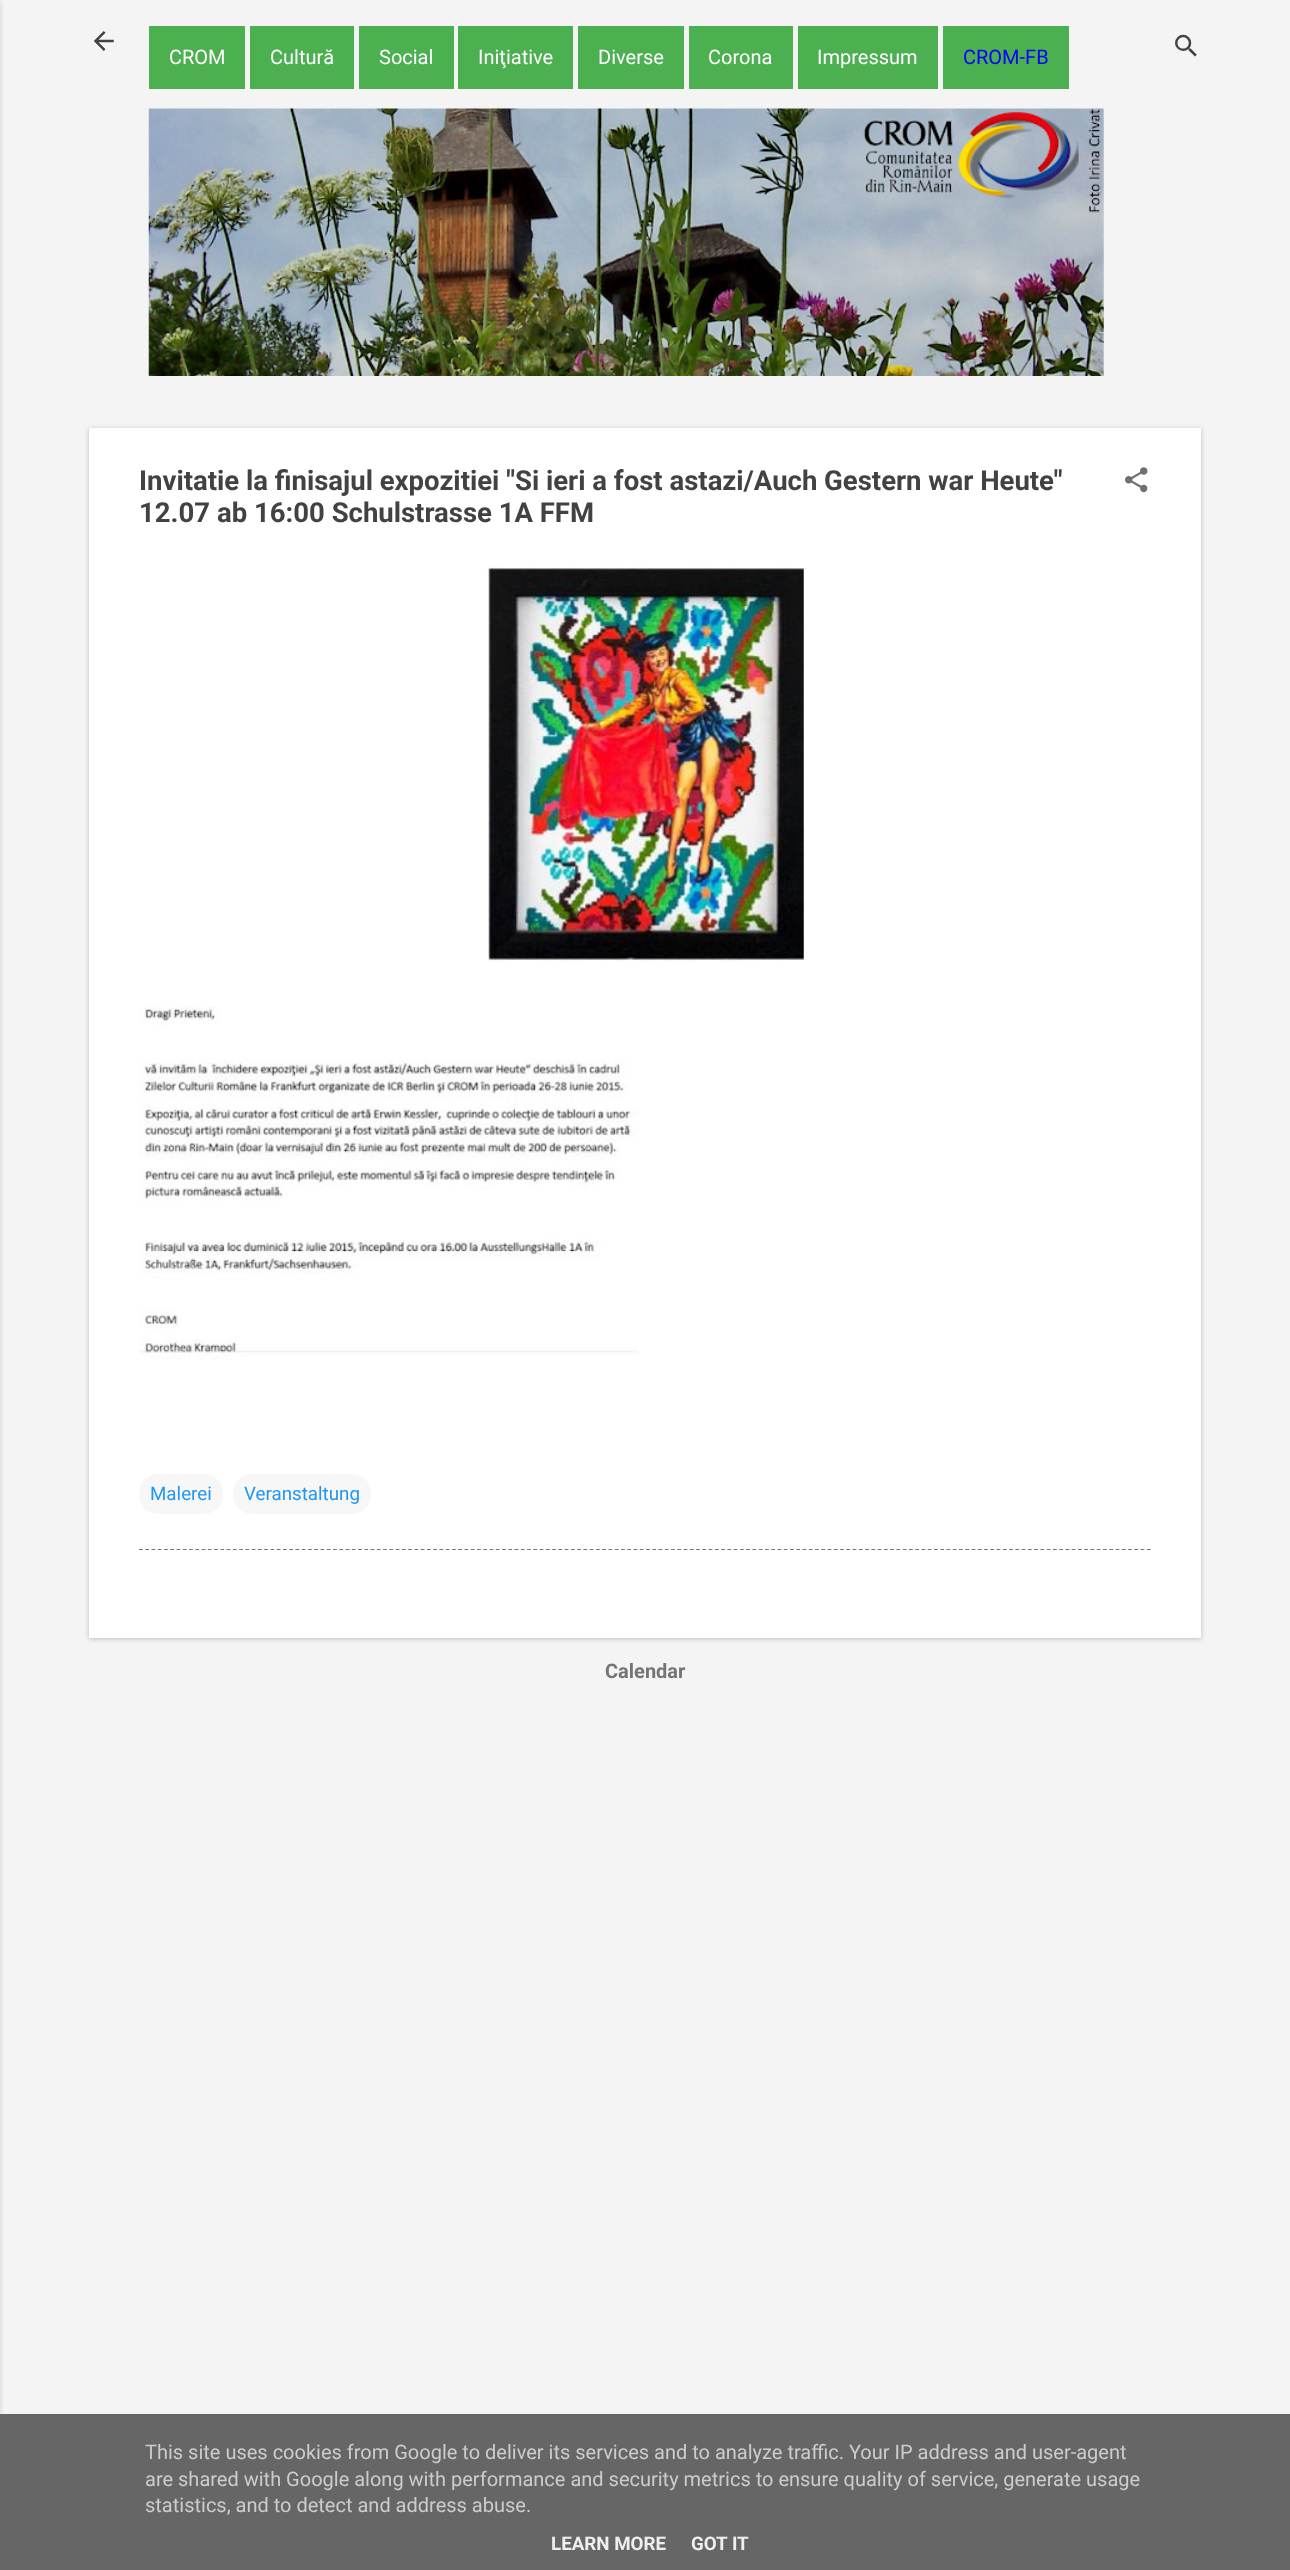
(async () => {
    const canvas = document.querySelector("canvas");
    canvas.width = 1290;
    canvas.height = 2570;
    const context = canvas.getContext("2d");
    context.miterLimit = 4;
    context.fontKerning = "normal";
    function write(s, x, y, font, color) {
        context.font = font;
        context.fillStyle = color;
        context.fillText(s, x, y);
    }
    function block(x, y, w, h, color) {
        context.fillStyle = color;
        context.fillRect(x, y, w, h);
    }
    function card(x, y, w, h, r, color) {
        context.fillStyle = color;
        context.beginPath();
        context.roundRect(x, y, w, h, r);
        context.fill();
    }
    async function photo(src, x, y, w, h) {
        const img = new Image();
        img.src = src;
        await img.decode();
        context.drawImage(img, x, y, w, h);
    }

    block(0, 0, 1290, 2570, "rgb(244, 244, 244)");
    context.fillStyle = "rgba(0, 0, 0, 0.1)";
    context.filter = "blur(2px)";
    context.beginPath();
    context.rect(-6, 1, 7, 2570);
    context.fill();
    context.filter = "none";
    await photo("media/1.png", 94, 31, 20, 20);
    await photo("media/2.png", 1175, 34, 22, 23);
    block(149, 26, 96, 63, "rgb(76, 175, 80)");
    write("CROM", 169, 64, "20px Roboto", "rgb(255, 255, 255)");
    block(250, 26, 104, 63, "rgb(76, 175, 80)");
    write("Cultură", 270, 64, "20px Roboto", "rgb(255, 255, 255)");
    block(359, 26, 95, 63, "rgb(76, 175, 80)");
    write("Social", 379, 64, "20px Roboto", "rgb(255, 255, 255)");
    block(458, 26, 115, 63, "rgb(76, 175, 80)");
    write("Iniţiative", 478, 64, "20px Roboto", "rgb(255, 255, 255)");
    block(578, 26, 106, 63, "rgb(76, 175, 80)");
    write("Diverse", 598, 64, "20px Roboto", "rgb(255, 255, 255)");
    block(689, 26, 104, 63, "rgb(76, 175, 80)");
    write("Corona", 708, 64, "20px Roboto", "rgb(255, 255, 255)");
    block(798, 26, 140, 63, "rgb(76, 175, 80)");
    write("Impressum", 817, 64, "20px Roboto", "rgb(255, 255, 255)");
    block(943, 26, 126, 63, "rgb(76, 175, 80)");
    write("CROM-FB", 963, 64, "20px Roboto", "rgb(0, 0, 255)");
    await photo("media/3.png", 148, 108, 956, 268);
    context.fillStyle = "rgba(60, 64, 67, 0.3)";
    context.filter = "blur(2.5px)";
    context.beginPath();
    context.rect(89, 429, 1112, 1210);
    context.fill();
    context.filter = "none";
    block(89, 428, 1112, 1210, "rgb(255, 255, 255)");
    write("Invitatie la finisajul expozitiei \"Si ieri a fost astazi/Auch Gestern war Heute\"", 139, 490, "bold 27.5px Roboto", "rgb(66, 66, 66)");
    write("12.07 ab 16:00 Schulstrasse 1A FFM", 139, 522, "bold 27.5px Roboto", "rgb(66, 66, 66)");
    await photo("media/4.png", 1125, 467, 23, 26);
    await photo("media/5.png", 487, 566, 317, 395);
    await photo("media/6.png", 139, 1007, 500, 353);
    card(139, 1474, 84, 40, 19, "rgb(247, 247, 247)");
    write("Malerei", 150, 1500, "18.75px Roboto", "rgb(33, 150, 243)");
    card(233, 1474, 138, 40, 19, "rgb(247, 247, 247)");
    write("Veranstaltung", 244, 1500, "18.75px Roboto", "rgb(33, 150, 243)");
    context.beginPath();
    context.moveTo(139, 1549.5);
    context.lineTo(1151, 1549.5);
    context.strokeStyle = "rgb(117, 117, 117)";
    context.lineWidth = 1.2;
    context.setLineDash([3.75, 2.51]);
    context.stroke();
    write("Calendar", 605, 1678, "bold 20px Roboto", "rgb(117, 117, 117)");
    block(0, 2414, 1290, 156, "rgb(102, 102, 102)");
    write("This site uses cookies from Google to deliver its services and to analyze traffic. Your IP address and user-agent", 145, 2459, "20px Roboto", "rgb(204, 204, 204)");
    write("are shared with Google along with performance and security metrics to ensure quality of service, generate usage", 145, 2486, "20px Roboto", "rgb(204, 204, 204)");
    write("statistics, and to detect and address abuse.", 145, 2512, "20px Roboto", "rgb(204, 204, 204)");
    write("LEARN MORE", 551, 2550, "bold 18.75px Roboto", "rgb(238, 238, 238)");
    write("GOT IT", 691, 2550, "bold 18.75px Roboto", "rgb(238, 238, 238)");
})();
